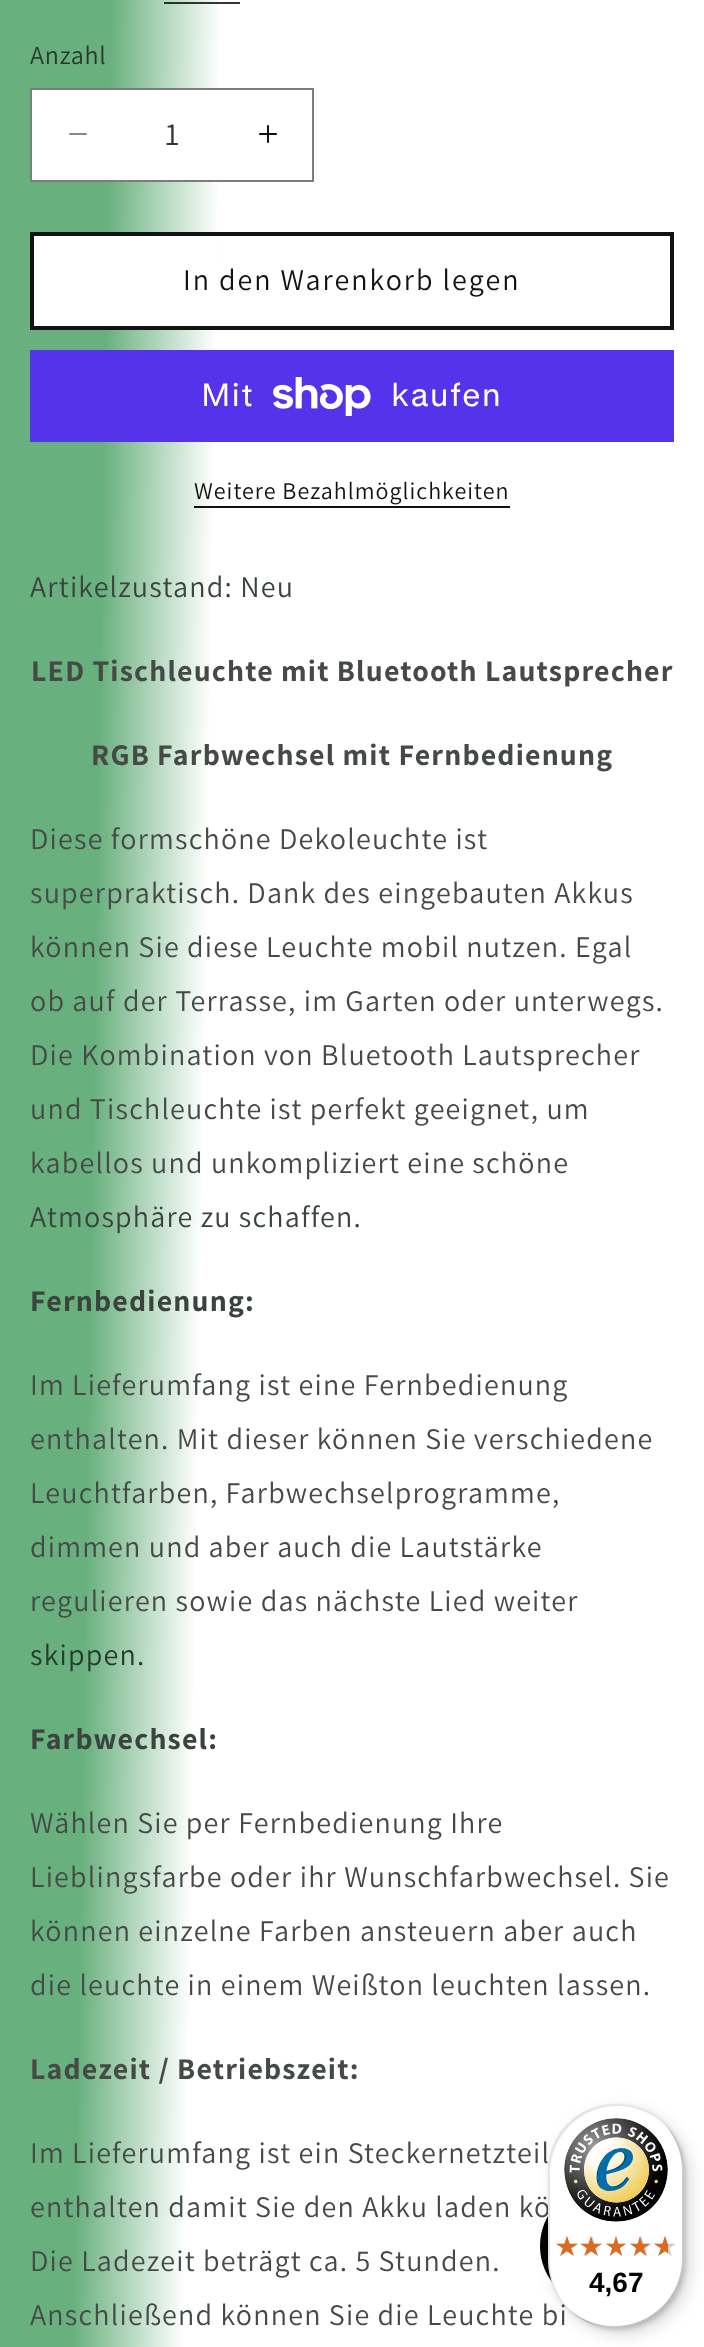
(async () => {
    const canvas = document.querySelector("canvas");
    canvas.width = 704;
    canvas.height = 2347;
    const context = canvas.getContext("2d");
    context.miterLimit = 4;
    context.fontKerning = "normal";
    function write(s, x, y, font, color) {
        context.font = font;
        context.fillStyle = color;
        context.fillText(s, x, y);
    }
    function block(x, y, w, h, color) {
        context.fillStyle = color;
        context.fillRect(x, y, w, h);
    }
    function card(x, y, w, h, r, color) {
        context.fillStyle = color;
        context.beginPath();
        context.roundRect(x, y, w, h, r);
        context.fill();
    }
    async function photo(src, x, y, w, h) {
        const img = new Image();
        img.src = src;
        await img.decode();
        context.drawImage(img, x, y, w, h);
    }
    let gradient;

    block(0, 0, 704, 2347, "rgb(255, 255, 255)");
    gradient = context.createLinearGradient(-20, 1168, 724, 1180);
    gradient.addColorStop(0.15, "rgb(104, 176, 125)");
    gradient.addColorStop(0.3, "rgb(255, 255, 255)");
    context.fillStyle = gradient;
    context.fillRect(0, 0, 220, 2347);
    gradient = context.createLinearGradient(-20, 1168, 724, 1180);
    gradient.addColorStop(0.15, "rgb(31, 42, 34)");
    gradient.addColorStop(0.3, "rgb(54, 54, 54)");
    context.fillStyle = gradient;
    context.fillRect(164, 2, 76, 2);
    context.letterSpacing = "0.75px";
    write("Anzahl", 30, 64, "26px Assistant", "rgb(40, 58, 45)");
    block(32, 90, 187, 90, "rgb(255, 255, 255)");
    await photo("media/1.png", 69, 133, 18, 2);
    await photo("media/2.png", 259, 125, 18, 18);
    context.strokeStyle = "rgb(125, 125, 125)";
    context.lineWidth = 2;
    context.strokeRect(31, 89, 282, 92);
    context.letterSpacing = "0px";
    write("1", 165, 145, "32px Assistant", "rgb(54, 54, 54)");
    block(34, 236, 182, 90, "rgb(255, 255, 255)");
    context.strokeStyle = "rgb(18, 18, 18)";
    context.lineWidth = 4;
    context.strokeRect(32, 234, 640, 94);
    context.letterSpacing = "2px";
    write("In den Warenkorb legen", 183, 290, "30px Assistant", "rgb(18, 18, 18)");
    block(30, 350, 644, 92, "rgb(84, 51, 235)");
    context.letterSpacing = "1.2px";
    write("Mit", 201, 406, "32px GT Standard", "rgb(255, 255, 255)");
    await photo("media/3.png", 273, 377, 98, 39);
    write("kaufen", 391, 406, "32px GT Standard", "rgb(255, 255, 255)");
    context.letterSpacing = "1px";
    write("Weitere Bezahlmöglichkeiten", 194, 499, "24px Assistant", "rgb(18, 18, 18)");
    block(194, 506, 316, 2, "rgb(18, 18, 18)");
    context.letterSpacing = "1.2px";
    write("Artikelzustand: Neu", 30, 597, "30px Assistant", "rgb(58, 67, 61)");
    write("LED Tischleuchte mit Bluetooth Lautsprecher", 31, 681, "bold 30px Assistant", "rgb(70, 74, 71)");
    write("RGB Farbwechsel mit Fernbedienung", 91, 765, "bold 30px Assistant", "rgb(70, 74, 71)");
    write("Diese formschöne Dekoleuchte ist", 30, 849, "30px Assistant", "rgb(70, 74, 71)");
    write("superpraktisch. Dank des eingebauten Akkus", 30, 903, "30px Assistant", "rgb(70, 74, 71)");
    write("können Sie diese Leuchte mobil nutzen. Egal", 30, 957, "30px Assistant", "rgb(70, 74, 71)");
    write("ob auf der Terrasse, im Garten oder unterwegs.", 30, 1011, "30px Assistant", "rgb(70, 74, 71)");
    write("Die Kombination von Bluetooth Lautsprecher", 30, 1065, "30px Assistant", "rgb(70, 74, 71)");
    write("und Tischleuchte ist perfekt geeignet, um", 30, 1119, "30px Assistant", "rgb(70, 74, 71)");
    write("kabellos und unkompliziert eine schöne", 30, 1173, "30px Assistant", "rgb(70, 74, 71)");
    write("Atmosphäre zu schaffen.", 30, 1227, "30px Assistant", "rgb(58, 67, 61)");
    write("Fernbedienung:", 30, 1311, "bold 30px Assistant", "rgb(58, 67, 61)");
    write("Im Lieferumfang ist eine Fernbedienung", 30, 1395, "30px Assistant", "rgb(70, 74, 71)");
    write("enthalten. Mit dieser können Sie verschiedene", 30, 1449, "30px Assistant", "rgb(70, 74, 71)");
    write("Leuchtfarben, Farbwechselprogramme,", 30, 1503, "30px Assistant", "rgb(70, 74, 71)");
    write("dimmen und aber auch die Lautstärke", 30, 1557, "30px Assistant", "rgb(70, 74, 71)");
    write("regulieren sowie das nächste Lied weiter", 30, 1611, "30px Assistant", "rgb(70, 74, 71)");
    write("skippen.", 30, 1665, "30px Assistant", "rgb(40, 58, 45)");
    write("Farbwechsel:", 30, 1749, "bold 30px Assistant", "rgb(58, 67, 61)");
    write("Wählen Sie per Fernbedienung Ihre", 30, 1833, "30px Assistant", "rgb(70, 74, 71)");
    write("Lieblingsfarbe oder ihr Wunschfarbwechsel. Sie", 30, 1887, "30px Assistant", "rgb(70, 74, 71)");
    write("können einzelne Farben ansteuern aber auch", 30, 1941, "30px Assistant", "rgb(70, 74, 71)");
    write("die leuchte in einem Weißton leuchten lassen.", 30, 1995, "30px Assistant", "rgb(70, 74, 71)");
    write("Ladezeit / Betriebszeit:", 30, 2079, "bold 30px Assistant", "rgb(70, 74, 71)");
    write("Im Lieferumfang ist ein Steckernetzteil", 30, 2163, "30px Assistant", "rgb(70, 74, 71)");
    write("enthalten damit Sie den Akku laden kö", 30, 2217, "30px Assistant", "rgb(70, 74, 71)");
    write("Die Ladezeit beträgt ca. 5 Stunden.", 30, 2271, "30px Assistant", "rgb(70, 74, 71)");
    write("Anschließend können Sie die Leuchte bi", 30, 2325, "30px Assistant", "rgb(70, 74, 71)");
    context.fillStyle = "rgb(0, 0, 0)";
    context.beginPath();
    context.arc(600, 2246, 60, 0, Math.PI * 2);
    context.fill();
    context.fillStyle = "rgba(0, 0, 0, 0.15)";
    context.filter = "blur(8px)";
    context.beginPath();
    context.roundRect(554, 2110, 136, 224, 68);
    context.fill();
    context.filter = "none";
    context.filter = "blur(2px)";
    context.beginPath();
    context.roundRect(550, 2106, 136, 224, 68);
    context.fill();
    context.filter = "none";
    card(548, 2104, 136, 224, 68, "rgb(255, 255, 255)");
    context.fillStyle = "rgba(0, 0, 0, 0.1)";
    context.beginPath();
    context.moveTo(618, 2106);
    context.bezierCurveTo(634, 2106, 649, 2112, 661, 2121);
    context.bezierCurveTo(649, 2110, 633, 2104, 616, 2104);
    context.bezierCurveTo(578, 2104, 548, 2134, 548, 2172);
    context.lineTo(548, 2260);
    context.bezierCurveTo(548, 2277, 554, 2293, 565, 2305);
    context.bezierCurveTo(556, 2293, 550, 2278, 550, 2262);
    context.lineTo(550, 2174);
    context.bezierCurveTo(550, 2136, 580, 2106, 618, 2106);
    context.closePath();
    context.fill();
    context.fillStyle = "rgba(0, 0, 0, 0.2)";
    context.beginPath();
    context.moveTo(571, 2311);
    context.bezierCurveTo(583, 2322, 599, 2328, 616, 2328);
    context.bezierCurveTo(654, 2328, 684, 2298, 684, 2260);
    context.lineTo(684, 2172);
    context.bezierCurveTo(684, 2155, 678, 2139, 667, 2127);
    context.bezierCurveTo(676, 2139, 682, 2154, 682, 2170);
    context.lineTo(682, 2258);
    context.bezierCurveTo(682, 2296, 652, 2326, 614, 2326);
    context.bezierCurveTo(598, 2326, 583, 2320, 571, 2311);
    context.closePath();
    context.fill();
    context.fillStyle = "rgba(50, 50, 50, 0.2)";
    context.beginPath();
    context.moveTo(566, 2307);
    context.bezierCurveTo(579, 2320, 596, 2328, 616, 2328);
    context.bezierCurveTo(654, 2328, 684, 2298, 684, 2260);
    context.lineTo(684, 2172);
    context.bezierCurveTo(684, 2152, 676, 2135, 663, 2122);
    context.bezierCurveTo(675, 2135, 683, 2152, 683, 2171);
    context.lineTo(683, 2259);
    context.bezierCurveTo(683, 2296, 652, 2327, 615, 2327);
    context.bezierCurveTo(596, 2327, 579, 2319, 566, 2307);
    context.closePath();
    context.fill();
    context.fillStyle = "rgba(255, 255, 255, 0.3)";
    context.beginPath();
    context.moveTo(575, 2314);
    context.bezierCurveTo(587, 2323, 601, 2328, 616, 2328);
    context.bezierCurveTo(654, 2328, 684, 2298, 684, 2260);
    context.lineTo(684, 2172);
    context.bezierCurveTo(684, 2157, 679, 2143, 670, 2131);
    context.bezierCurveTo(678, 2142, 683, 2156, 683, 2171);
    context.lineTo(683, 2259);
    context.bezierCurveTo(683, 2297, 653, 2327, 615, 2327);
    context.bezierCurveTo(600, 2327, 586, 2322, 575, 2314);
    context.closePath();
    context.fill();
    await photo("media/4.png", 564, 2118, 104, 104);
    await photo("media/5.png", 556, 2236, 22, 20);
    await photo("media/6.png", 582, 2236, 20, 20);
    await photo("media/7.png", 606, 2236, 20, 20);
    await photo("media/8.png", 630, 2236, 22, 20);
    await photo("media/8.png", 654, 2236, 22, 20);
    await photo("media/9.png", 556, 2236, 22, 20);
    await photo("media/10.png", 580, 2236, 22, 20);
    await photo("media/11.png", 606, 2236, 20, 20);
    await photo("media/12.png", 630, 2236, 20, 20);
    await photo("media/13.png", 654, 2236, 14, 20);
    context.letterSpacing = "0px";
    write("4,67", 589, 2292, "bold 28px Liberation Sans", "rgb(0, 0, 0)");
})();
